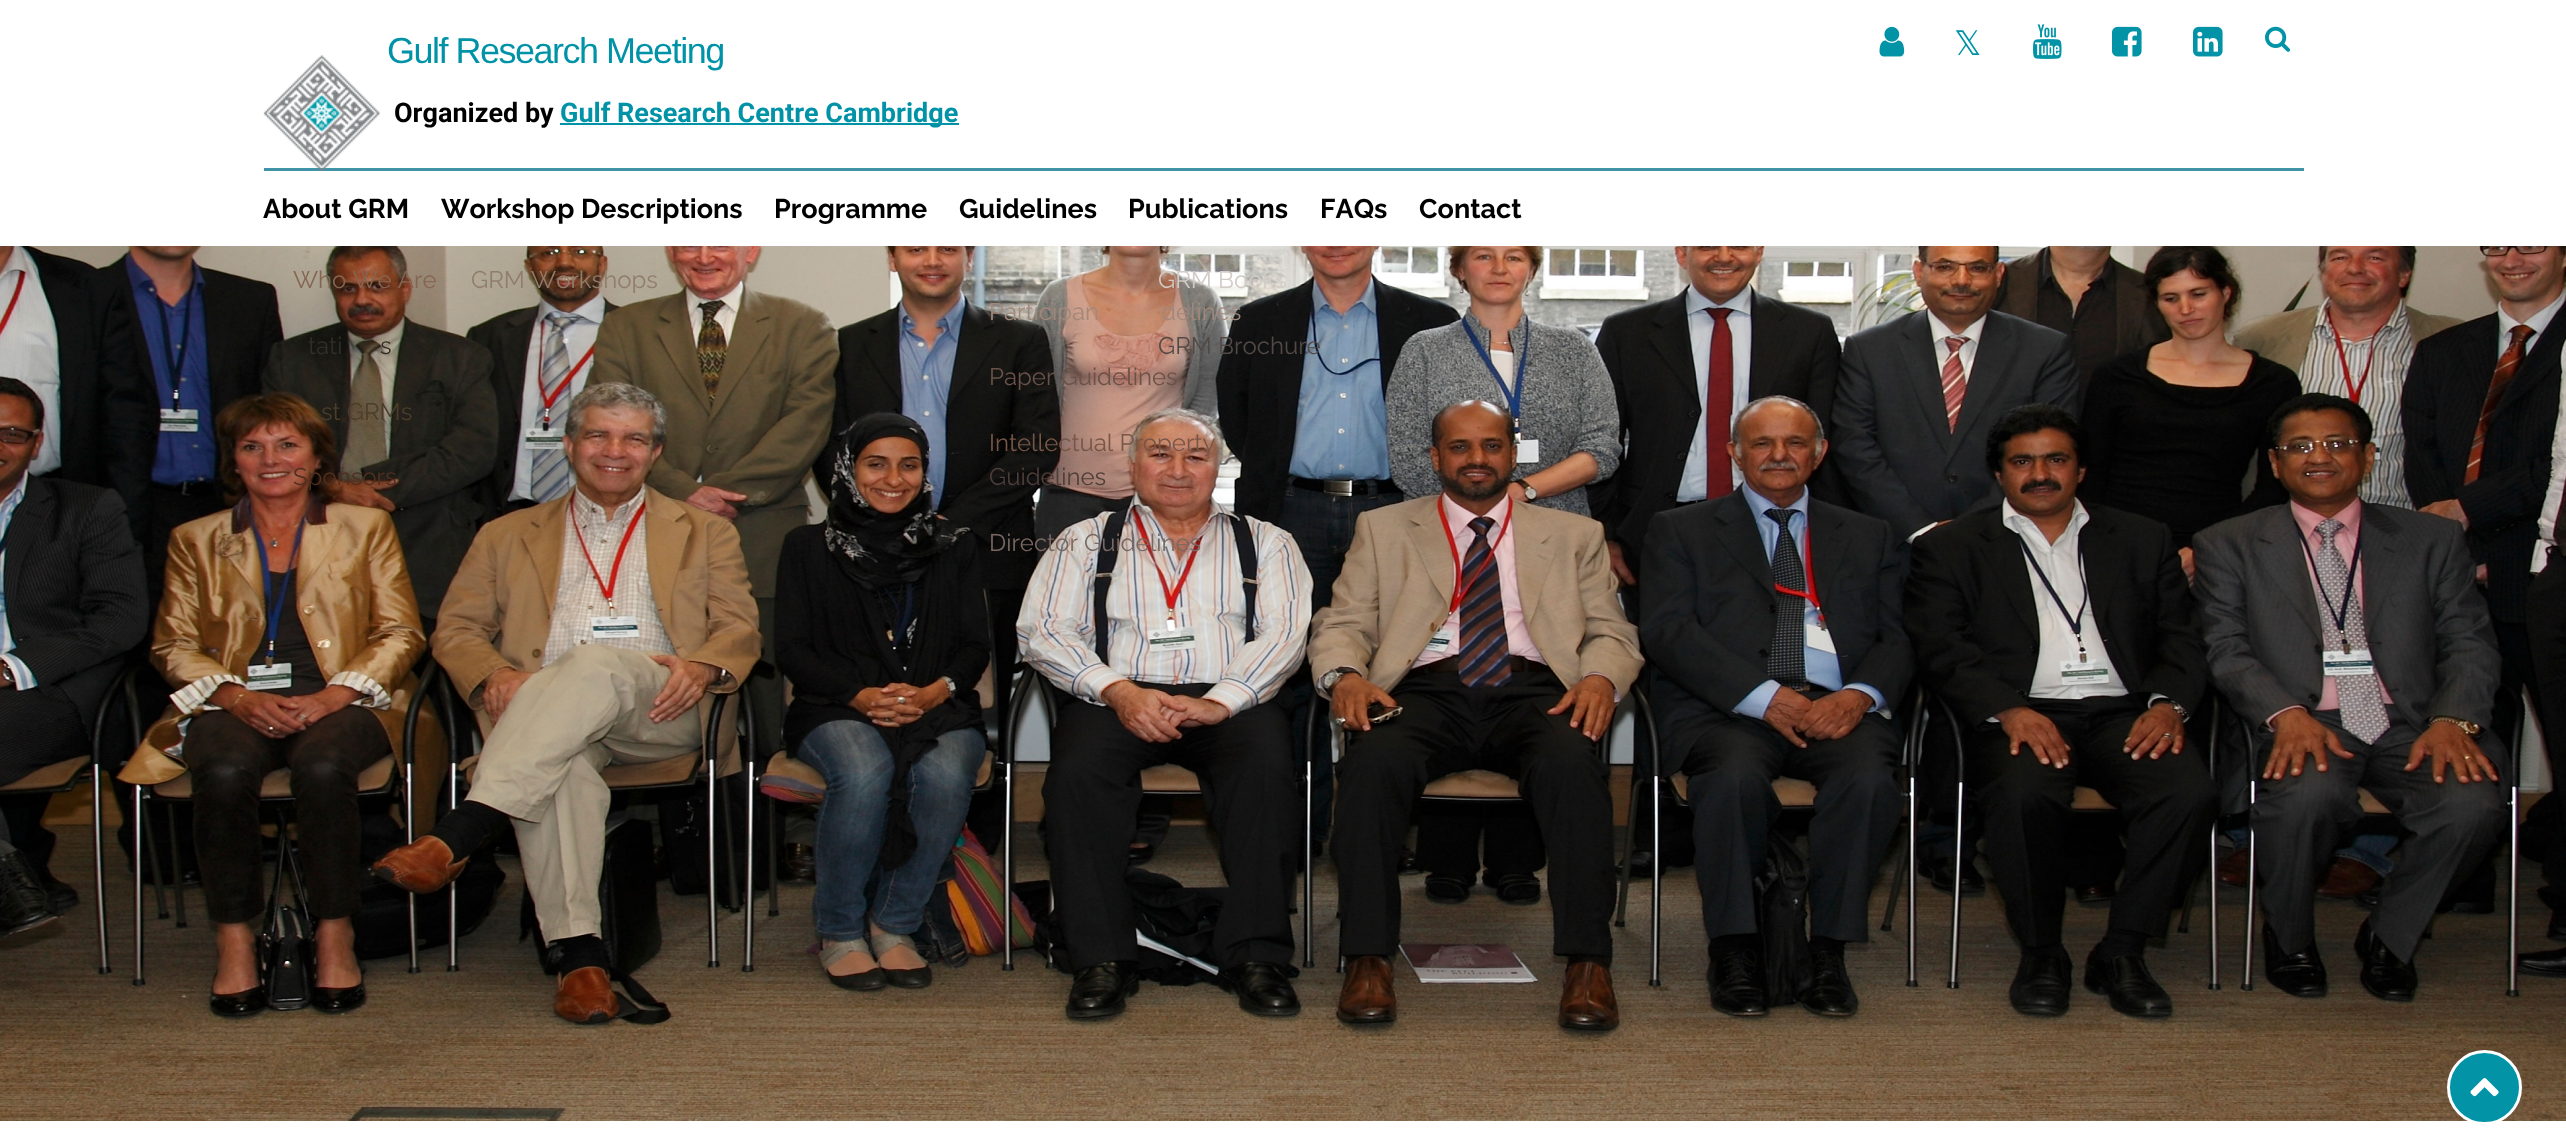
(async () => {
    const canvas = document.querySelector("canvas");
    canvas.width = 2566;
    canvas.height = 1139;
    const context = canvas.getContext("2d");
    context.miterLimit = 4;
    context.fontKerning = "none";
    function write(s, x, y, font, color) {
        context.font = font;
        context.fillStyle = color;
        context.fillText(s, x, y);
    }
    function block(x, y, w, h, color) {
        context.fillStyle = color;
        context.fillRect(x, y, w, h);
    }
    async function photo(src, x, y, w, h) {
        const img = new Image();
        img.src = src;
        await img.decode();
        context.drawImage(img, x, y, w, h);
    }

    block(0, 0, 2566, 1139, "rgb(255, 255, 255)");
    await photo("media/1.png", 1879, 26, 26, 31);
    write("𝕏", 1954, 55, "34px DejaVu Sans", "rgb(0, 147, 167)");
    await photo("media/2.png", 2033, 24, 29, 35);
    await photo("media/3.png", 2112, 26, 30, 31);
    await photo("media/4.png", 2193, 26, 30, 31);
    await photo("media/5.png", 2265, 26, 25, 26);
    block(264, 168, 2040, 3, "rgb(65, 148, 167)");
    write("About GRM", 263, 218, "bold 27px Raleway", "rgb(0, 0, 0)");
    await photo("media/7.png", 0, 246, 2566, 875);
    write("Who We Are", 293, 288, "24px Raleway", "rgb(133, 101, 80)");
    write("tati", 308, 354, "24px Raleway", "rgb(49, 46, 38)");
    write("s", 380, 354, "24px Raleway", "rgb(49, 46, 38)");
    write("st GRMs", 321, 420, "24px Raleway", "rgb(76, 61, 43)");
    write("Sponsors", 293, 485, "24px Raleway", "rgb(79, 47, 32)");
    write("Workshop Descriptions", 441, 218, "bold 27px Raleway", "rgb(0, 0, 0)");
    write("GRM Workshops", 471, 288, "24px Raleway", "rgb(144, 125, 106)");
    write("Programme", 774, 218, "bold 27px Raleway", "rgb(0, 0, 0)");
    write("Guidelines", 959, 218, "bold 27px Raleway", "rgb(0, 0, 0)");
    write("Participan", 989, 320, "24px Raleway", "rgb(162, 136, 122)");
    write("delines", 1161, 320, "24px Raleway", "rgb(162, 136, 122)");
    write("Paper Guidelines", 989, 385, "24px Raleway", "rgb(106, 81, 73)");
    write("Intellectual Property", 989, 451, "24px Raleway", "rgb(119, 86, 72)");
    write("Guidelines", 989, 485, "24px Raleway", "rgb(78, 62, 57)");
    write("Director Guidelines", 989, 551, "24px Raleway", "rgb(120, 103, 98)");
    write("Publications", 1128, 218, "bold 27px Raleway", "rgb(0, 0, 0)");
    write("GRM Books", 1158, 288, "24px Raleway", "rgb(211, 203, 197)");
    write("GRM Brochure", 1158, 354, "24px Raleway", "rgb(82, 73, 71)");
    write("FAQs", 1320, 218, "bold 27px Raleway", "rgb(0, 0, 0)");
    write("Contact", 1419, 218, "bold 27px Raleway", "rgb(0, 0, 0)");
    await photo("media/6.png", 263, 55, 117, 116);
    context.letterSpacing = "-1.5px";
    write("Gulf Research Meeting", 387, 63, "36px Liberation Sans", "rgb(0, 147, 167)");
    context.letterSpacing = "0px";
    write("Organized by", 394, 122, "bold 27px Roboto", "rgb(0, 0, 0)");
    block(560, 123, 399, 2, "rgb(0, 147, 167)");
    write("Gulf Research Centre Cambridge", 560, 122, "bold 27px Roboto", "rgb(0, 147, 167)");
    context.fillStyle = "rgb(2, 147, 167)";
    context.beginPath();
    context.arc(2484.5, 1087.5, 36, 0, Math.PI * 2);
    context.fill();
    context.strokeStyle = "rgb(255, 255, 255)";
    context.lineWidth = 3;
    context.stroke();
    await photo("media/8.png", 2470, 1078, 29, 19);
})();
